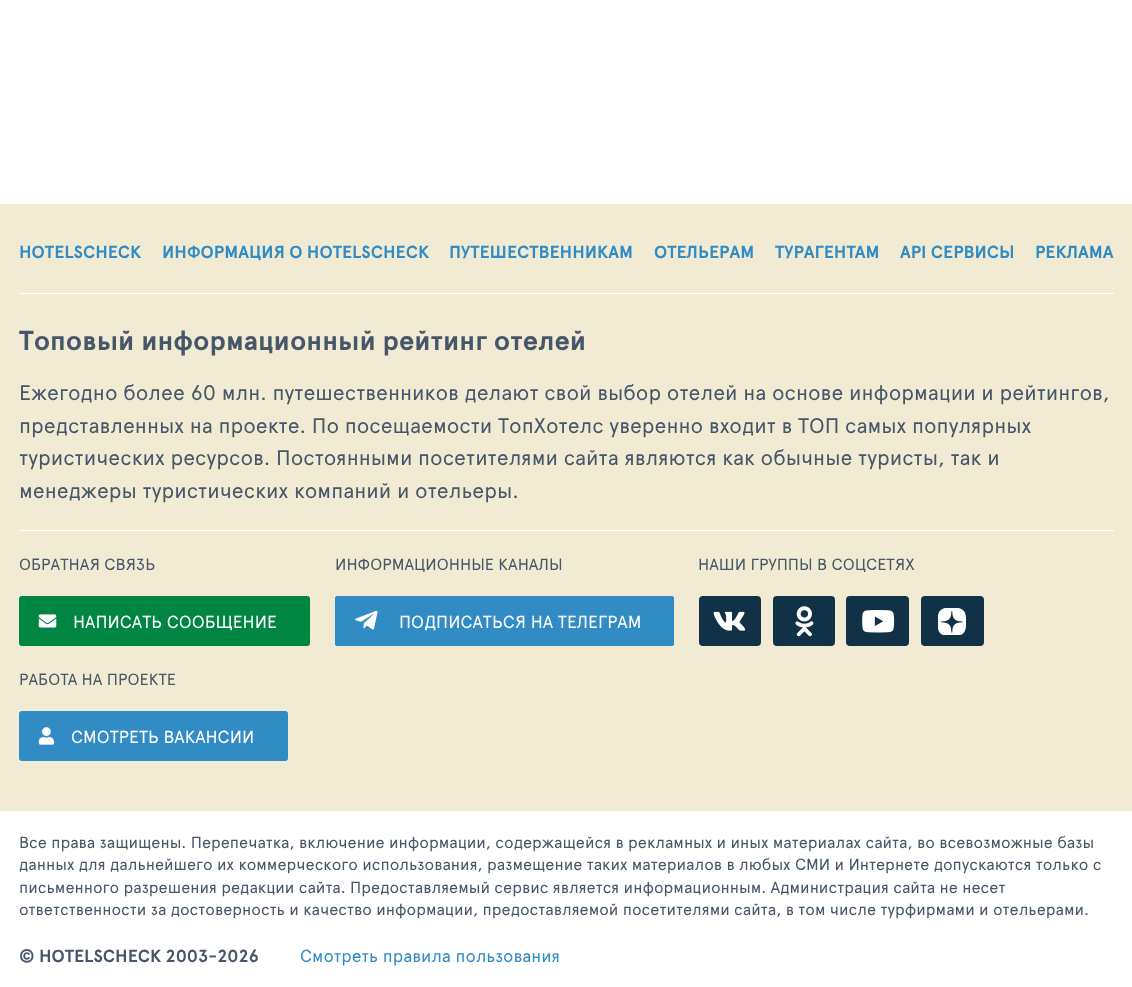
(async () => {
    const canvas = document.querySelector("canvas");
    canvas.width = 1132;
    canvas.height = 987;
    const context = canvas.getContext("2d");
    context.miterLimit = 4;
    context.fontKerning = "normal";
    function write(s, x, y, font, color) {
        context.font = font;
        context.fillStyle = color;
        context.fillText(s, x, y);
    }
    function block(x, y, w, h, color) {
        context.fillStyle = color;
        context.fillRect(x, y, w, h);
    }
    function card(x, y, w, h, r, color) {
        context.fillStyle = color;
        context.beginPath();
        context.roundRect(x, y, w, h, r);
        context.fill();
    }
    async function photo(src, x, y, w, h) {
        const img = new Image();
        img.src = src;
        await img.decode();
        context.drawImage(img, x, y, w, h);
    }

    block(0, 0, 1132, 987, "rgb(255, 255, 255)");
    block(0, 204, 1132, 607, "rgb(241, 235, 211)");
    write("HOTELSCHECK", 19, 258, "bold 17.5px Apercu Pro", "rgb(49, 140, 198)");
    write("ИНФОРМАЦИЯ О HOTELSCHECK", 162, 258, "bold 17.5px Apercu Pro", "rgb(49, 140, 198)");
    write("ПУТЕШЕСТВЕННИКАМ", 449, 258, "bold 17.5px Apercu Pro", "rgb(49, 140, 198)");
    write("ОТЕЛЬЕРАМ", 654, 258, "bold 17.5px Apercu Pro", "rgb(49, 140, 198)");
    write("ТУРАГЕНТАМ", 775, 258, "bold 17.5px Apercu Pro", "rgb(49, 140, 198)");
    write("API СЕРВИСЫ", 900, 258, "bold 17.5px Apercu Pro", "rgb(49, 140, 198)");
    write("РЕКЛАМА", 1035, 258, "bold 17.5px Apercu Pro", "rgb(49, 140, 198)");
    block(19, 293, 1095, 1, "rgb(255, 255, 255)");
    block(19, 530, 1095, 1, "rgb(255, 255, 255)");
    write("Топовый информационный рейтинг отелей", 19, 350, "bold 27.5px Apercu Pro", "rgb(71, 86, 105)");
    write("Ежегодно более 60 млн. путешественников делают свой выбор отелей на основе информации и рейтингов,", 19, 400, "21.25px Apercu Pro", "rgb(71, 86, 105)");
    write("представленных на проекте. По посещаемости ТопХотелс уверенно входит в ТОП самых популярных", 19, 433, "21.25px Apercu Pro", "rgb(71, 86, 105)");
    write("туристических ресурсов. Постоянными посетителями сайта являются как обычные туристы, так и", 19, 465, "21.25px Apercu Pro", "rgb(71, 86, 105)");
    write("менеджеры туристических компаний и отельеры.", 19, 498, "21.25px Apercu Pro", "rgb(71, 86, 105)");
    write("ОБРАТНАЯ СВЯЗЬ", 19, 570, "16.25px Apercu Pro", "rgb(71, 86, 105)");
    context.fillStyle = "rgb(0, 133, 67)";
    context.beginPath();
    context.roundRect(19.5, 596.5, 290, 49, 2);
    context.fill();
    context.strokeStyle = "rgb(0, 133, 67)";
    context.stroke();
    await photo("media/1.png", 38, 614, 19, 14);
    write("НАПИСАТЬ СООБЩЕНИЕ", 73, 628, "17.5px Apercu Pro", "rgb(255, 255, 255)");
    write("ИНФОРМАЦИОННЫЕ КАНАЛЫ", 335, 570, "16.25px Apercu Pro", "rgb(71, 86, 105)");
    card(335, 596, 339, 50, 2.5, "rgb(49, 140, 198)");
    await photo("media/2.png", 355, 610, 23, 20);
    context.beginPath();
    context.roundRect(335.5, 596.5, 338, 49, 2);
    context.strokeStyle = "rgb(49, 140, 198)";
    context.stroke();
    write("ПОДПИСАТЬСЯ НА ТЕЛЕГРАМ", 399, 628, "17.5px Apercu Pro", "rgb(255, 255, 255)");
    write("НАШИ ГРУППЫ В СОЦСЕТЯХ", 698, 570, "16.25px Apercu Pro", "rgb(71, 86, 105)");
    card(699, 596, 62, 50, 4, "rgb(17, 50, 70)");
    await photo("media/3.png", 713, 611, 33, 20);
    card(773, 596, 62, 50, 4, "rgb(17, 50, 70)");
    await photo("media/4.png", 795, 606, 19, 31);
    card(846, 596, 63, 50, 4, "rgb(17, 50, 70)");
    await photo("media/5.png", 862, 610, 33, 23);
    card(921, 596, 63, 50, 4, "rgb(17, 50, 70)");
    await photo("media/6.png", 938, 608, 28, 27);
    write("РАБОТА НА ПРОЕКТЕ", 19, 685, "16.25px Apercu Pro", "rgb(71, 86, 105)");
    context.fillStyle = "rgb(49, 140, 198)";
    context.beginPath();
    context.roundRect(19.5, 711.5, 268, 49, 2);
    context.fill();
    context.stroke();
    await photo("media/7.png", 38, 727, 17, 18);
    write("СМОТРЕТЬ ВАКАНСИИ", 71, 743, "17.5px Apercu Pro", "rgb(255, 255, 255)");
    write("Все права защищены. Перепечатка, включение информации, содержащейся в рекламных и иных материалах сайта, во всевозможные базы", 19, 848, "16.25px Apercu Pro", "rgb(71, 86, 105)");
    write("данных для дальнейшего их коммерческого использования, размещение таких материалов в любых СМИ и Интернете допускаются только с", 19, 870, "16.25px Apercu Pro", "rgb(71, 86, 105)");
    write("письменного разрешения редакции сайта. Предоставляемый сервис является информационным. Администрация сайта не несет", 19, 893, "16.25px Apercu Pro", "rgb(71, 86, 105)");
    write("ответственности за достоверность и качество информации, предоставляемой посетителями сайта, в том числе турфирмами и отельерами.", 19, 915, "16.25px Apercu Pro", "rgb(71, 86, 105)");
    write("© HOTELSCHECK 2003-2026", 19, 962, "bold 17.5px Apercu Pro", "rgb(71, 86, 105)");
    write("Смотреть правила пользования", 300, 962, "17.5px Apercu Pro", "rgb(49, 140, 198)");
})();
